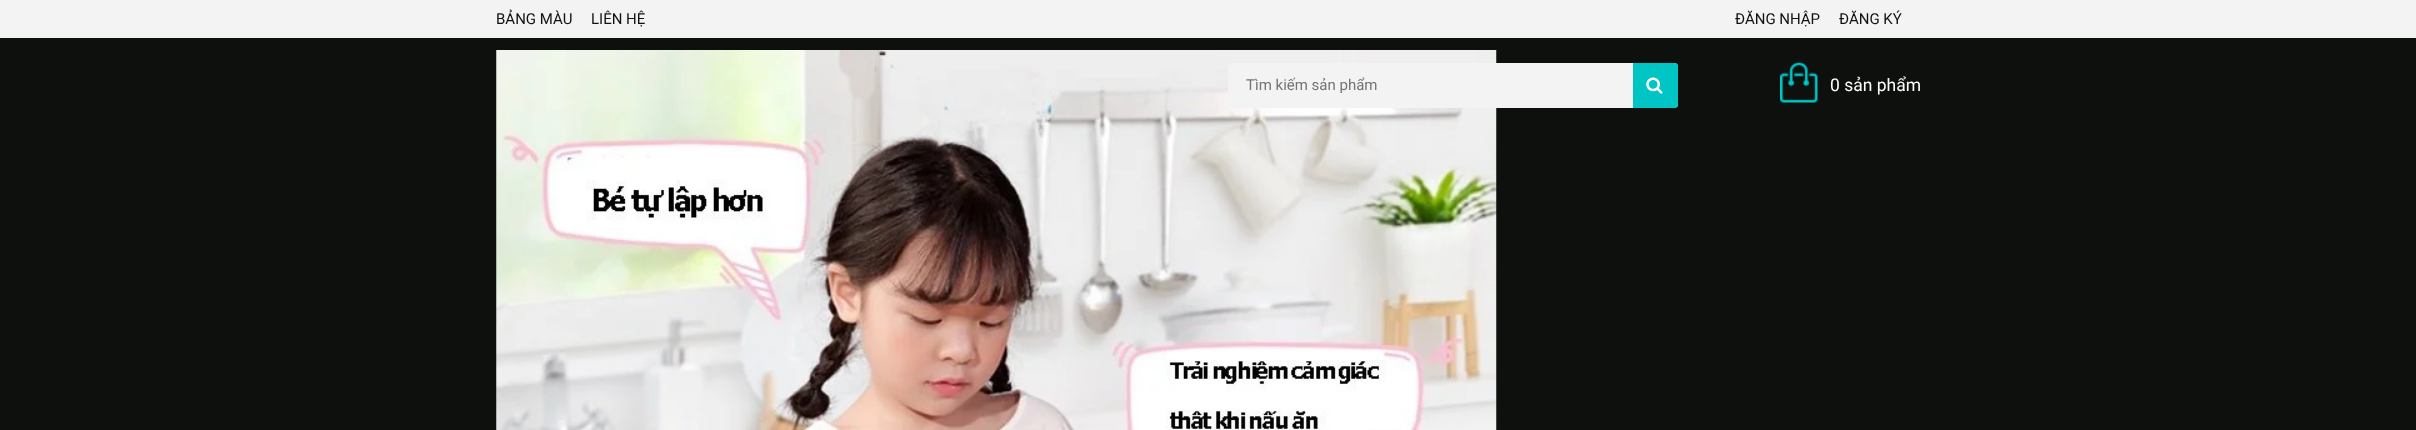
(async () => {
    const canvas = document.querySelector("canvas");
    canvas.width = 2416;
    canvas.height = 430;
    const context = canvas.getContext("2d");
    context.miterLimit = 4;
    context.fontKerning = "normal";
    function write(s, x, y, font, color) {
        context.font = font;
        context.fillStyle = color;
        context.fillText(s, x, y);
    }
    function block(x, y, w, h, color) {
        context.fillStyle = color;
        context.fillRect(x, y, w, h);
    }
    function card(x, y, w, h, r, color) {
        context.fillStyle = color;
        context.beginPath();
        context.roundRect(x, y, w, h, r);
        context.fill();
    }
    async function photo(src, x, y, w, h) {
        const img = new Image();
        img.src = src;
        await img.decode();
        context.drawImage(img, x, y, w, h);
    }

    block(0, 0, 2416, 430, "rgb(243, 243, 243)");
    write("BẢNG MÀU", 496, 24, "15px Roboto", "rgb(17, 17, 17)");
    write("LIÊN HỆ", 591, 24, "15px Roboto", "rgb(17, 17, 17)");
    write("ĐĂNG NHẬP", 1735, 24, "15px Roboto", "rgb(17, 17, 17)");
    write("ĐĂNG KÝ", 1839, 24, "15px Roboto", "rgb(17, 17, 17)");
    block(0, 38, 2416, 392, "rgb(14, 16, 14)");
    await photo("media/1.png", 496, 50, 1001, 380);
    await photo("media/2.png", 1780, 62, 38, 41);
    write("0 sản phẩm", 1830, 91, "17.5px Roboto", "rgb(255, 255, 255)");
    card(1228, 63, 450, 45, 4, "rgb(243, 243, 243)");
    write("Tìm kiếm sản phẩm", 1246, 90, "15px Roboto", "rgb(117, 117, 117)");
    context.fillStyle = "rgb(1, 196, 196)";
    context.beginPath();
    context.roundRect(1633, 63, 45, 45, [0, 4, 4, 0]);
    context.fill();
    await photo("media/3.png", 1646, 77, 17, 17);
})();
